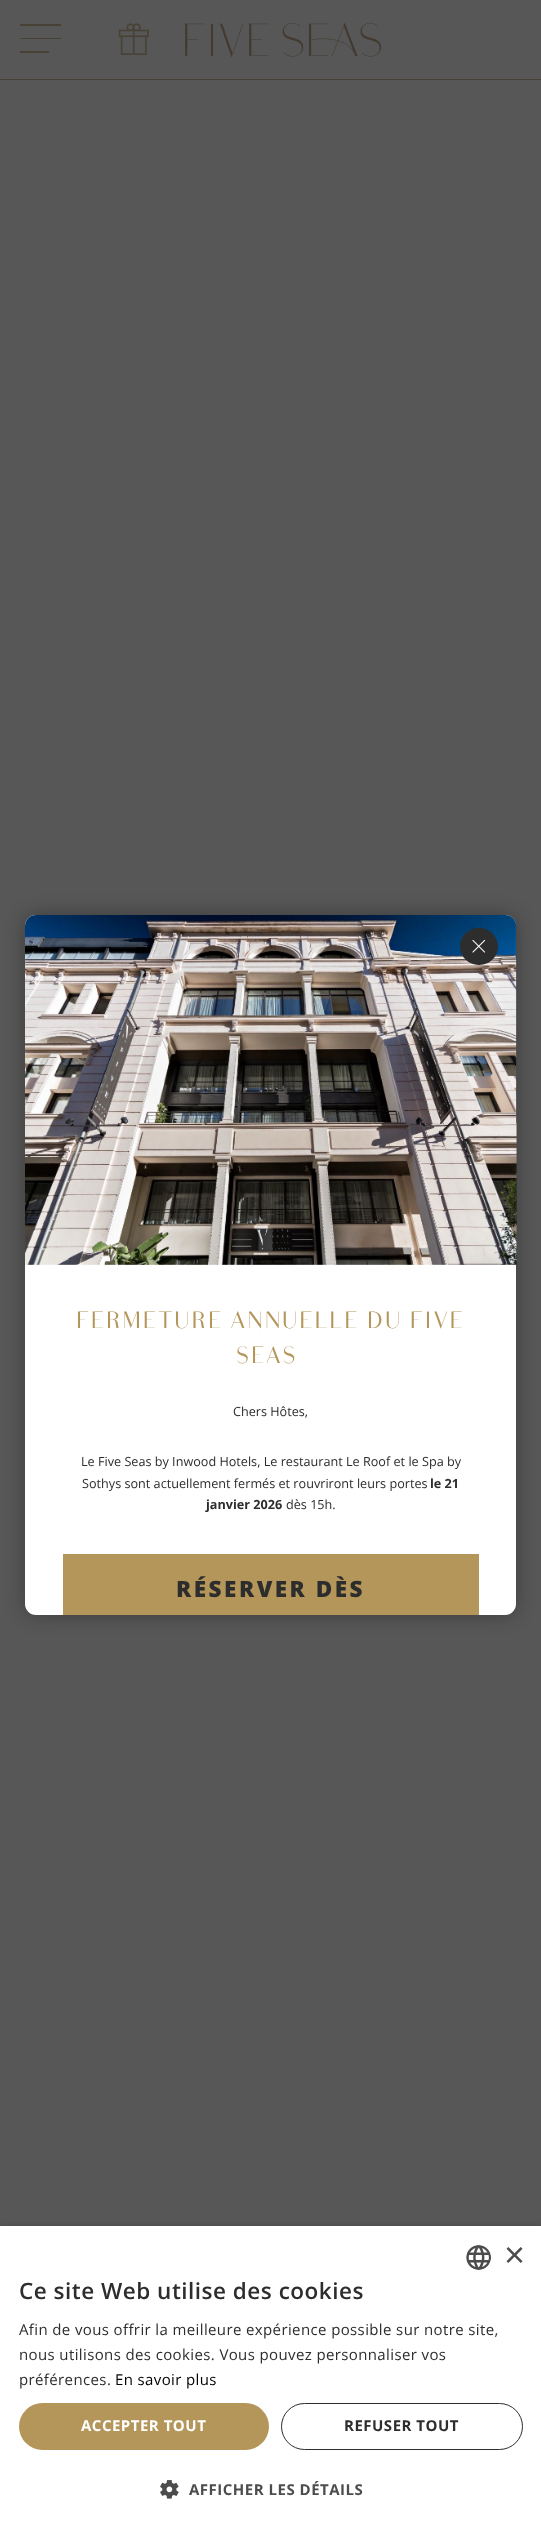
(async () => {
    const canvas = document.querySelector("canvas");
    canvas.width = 541;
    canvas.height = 2529;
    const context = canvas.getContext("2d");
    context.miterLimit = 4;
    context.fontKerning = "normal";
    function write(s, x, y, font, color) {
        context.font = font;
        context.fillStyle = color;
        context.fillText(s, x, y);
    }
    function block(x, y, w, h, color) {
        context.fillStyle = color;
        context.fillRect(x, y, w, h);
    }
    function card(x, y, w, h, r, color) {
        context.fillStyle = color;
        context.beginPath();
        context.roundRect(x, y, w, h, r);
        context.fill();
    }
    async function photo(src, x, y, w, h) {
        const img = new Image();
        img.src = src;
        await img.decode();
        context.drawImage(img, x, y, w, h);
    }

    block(0, 0, 541, 2529, "rgb(87, 87, 87)");
    block(0, 79, 541, 1, "rgb(72, 66, 54)");
    block(20, 24, 41, 2, "rgb(72, 66, 54)");
    block(20, 38, 41, 1, "rgb(72, 66, 54)");
    block(20, 51, 29, 2, "rgb(72, 66, 54)");
    await photo("media/1.png", 118, 23, 31, 32);
    await photo("media/2.png", 185, 23, 196, 34);
    context.fillStyle = "rgba(0, 0, 0, 0.3)";
    context.filter = "blur(9.5px)";
    context.beginPath();
    context.roundRect(25, 915, 491, 700, 11);
    context.fill();
    context.filter = "none";
    card(25, 915, 491, 700, 11, "rgb(255, 255, 255)");
    await photo("media/4.png", 25, 915, 492, 350);
    card(460, 928, 38, 37, 18.5, "rgb(45, 45, 45)");
    await photo("media/3.png", 472, 939, 14, 14);
    context.letterSpacing = "2.5px";
    write("FERMETURE ANNUELLE DU FIVE", 76, 1328, "23.3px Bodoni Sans", "rgb(180, 150, 90)");
    write("SEAS", 236, 1363, "23.3px Bodoni Sans", "rgb(180, 150, 90)");
    context.letterSpacing = "0px";
    write("Chers Hôtes,", 233, 1416, "12.65px Open Sans", "rgb(45, 45, 45)");
    write("Le Five Seas by Inwood Hotels, Le restaurant Le Roof et le Spa by", 81, 1466, "12.65px Open Sans", "rgb(45, 45, 45)");
    write("Sothys sont actuellement fermés et rouvriront leurs portes", 82, 1488, "12.65px Open Sans", "rgb(45, 45, 45)");
    write("le 21", 430, 1488, "bold 12.65px Open Sans", "rgb(45, 45, 45)");
    write("janvier 2026", 206, 1509, "bold 12.65px Open Sans", "rgb(45, 45, 45)");
    write("dès 15h.", 286, 1509, "12.65px Open Sans", "rgb(45, 45, 45)");
    block(63, 1554, 416, 61, "rgb(180, 150, 90)");
    context.letterSpacing = "2.5px";
    write("RÉSERVER DÈS", 176, 1597, "800 22.5px Open Sans", "rgb(45, 45, 45)");
    context.fillStyle = "rgba(0, 0, 0, 0.35)";
    context.filter = "blur(5px)";
    context.beginPath();
    context.rect(1, 2229, 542, 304);
    context.fill();
    context.filter = "none";
    block(0, 2226, 541, 303, "rgb(255, 255, 255)");
    await photo("media/5.png", 466, 2245, 25, 25);
    context.letterSpacing = "0px";
    write("×", 504, 2267, "36px Liberation Sans", "rgb(77, 77, 77)");
    context.letterSpacing = "0.5px";
    write("Ce site Web utilise des cookies", 19, 2299, "600 22.5px Open Sans", "rgb(45, 45, 45)");
    context.letterSpacing = "0.38px";
    write("Afin de vous offrir la meilleure expérience possible sur notre site,", 19, 2335, "15px 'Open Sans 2'", "rgb(45, 45, 45)");
    write("nous utilisons des cookies. Vous pouvez personnaliser vos", 19, 2360, "15px 'Open Sans 2'", "rgb(45, 45, 45)");
    write("préférences.", 19, 2385, "15px 'Open Sans 2'", "rgb(45, 45, 45)");
    write("En savoir plus", 115, 2385, "15px 'Open Sans 2'", "rgb(0, 0, 0)");
    card(19, 2403, 250, 47, 23.5, "rgb(180, 150, 90)");
    context.letterSpacing = "0.5px";
    write("ACCEPTER TOUT", 81, 2431, "bold 15px 'Open Sans 2'", "rgb(255, 255, 255)");
    context.beginPath();
    context.roundRect(281.5, 2403.5, 241, 46, 23);
    context.strokeStyle = "rgb(45, 45, 45)";
    context.stroke();
    write("REFUSER TOUT", 344, 2431, "bold 15px 'Open Sans 2'", "rgb(45, 45, 45)");
    await photo("media/6.png", 160, 2480, 19, 19);
    write("AFFICHER LES DÉTAILS", 189, 2495, "bold 15px 'Open Sans 2'", "rgb(77, 77, 77)");
})();
